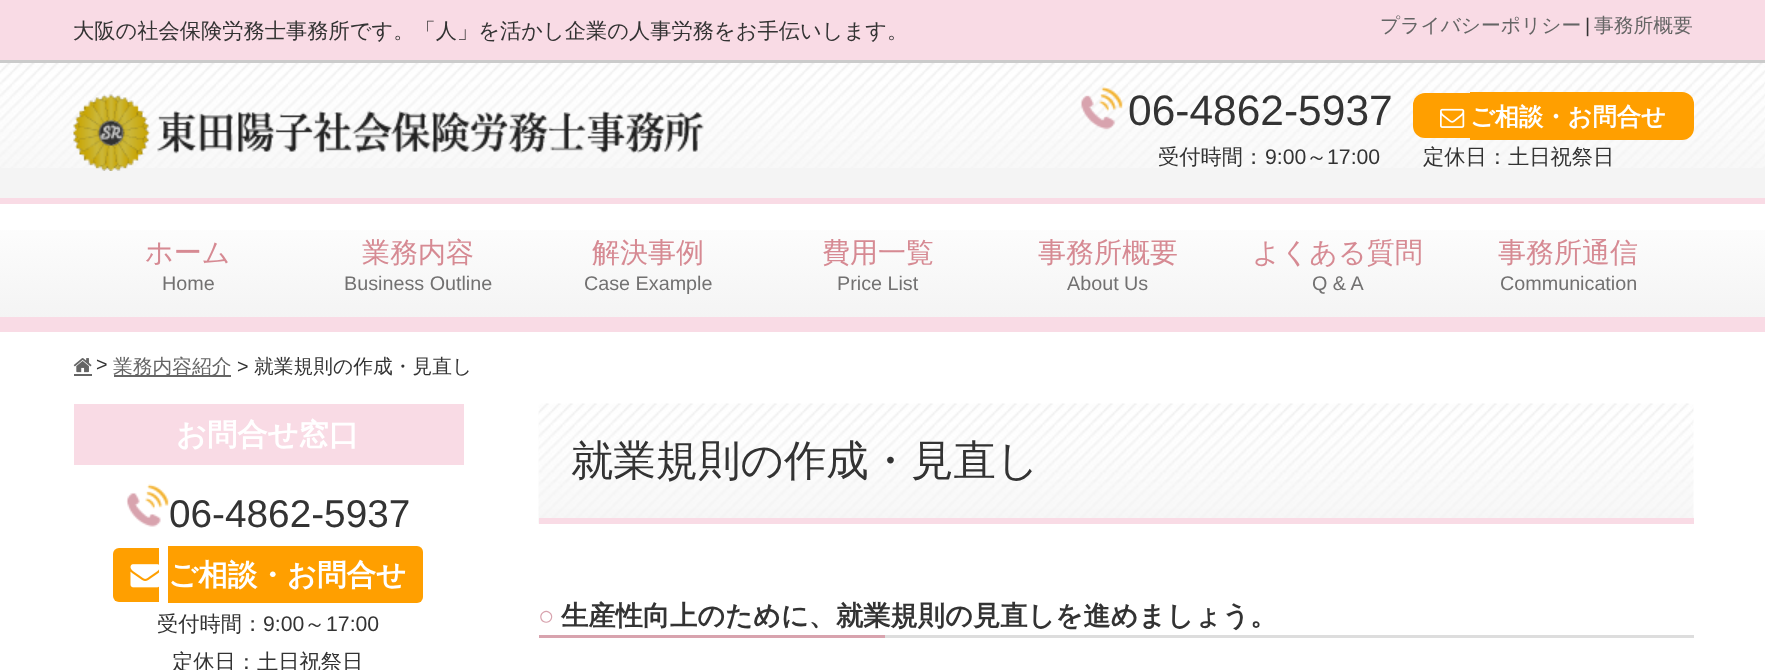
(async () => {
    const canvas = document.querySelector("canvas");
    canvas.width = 1765;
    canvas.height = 670;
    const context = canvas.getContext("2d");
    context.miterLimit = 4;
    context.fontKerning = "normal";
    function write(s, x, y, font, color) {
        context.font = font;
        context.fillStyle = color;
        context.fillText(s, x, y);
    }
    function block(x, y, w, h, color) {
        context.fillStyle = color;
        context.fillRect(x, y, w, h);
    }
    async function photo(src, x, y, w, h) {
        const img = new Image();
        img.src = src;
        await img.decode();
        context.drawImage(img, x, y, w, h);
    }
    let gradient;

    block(0, 0, 1765, 670, "rgb(255, 255, 255)");
    block(0, 198, 1765, 6, "rgb(249, 219, 229)");
    block(0, 0, 1765, 60, "rgb(249, 219, 229)");
    block(0, 60, 1765, 3, "rgb(203, 203, 203)");
    write("大阪の社会保険労務士事務所です。「人」を活かし企業の人事労務をお手伝いします。", 73, 38, "500 21.25px WenQuanYi Zen Hei", "rgb(51, 51, 51)");
    write("プライバシーポリシー", 1380, 32, "500 19.75px WenQuanYi Zen Hei", "rgb(101, 101, 101)");
    write("|", 1585, 32, "19.75px Liberation Sans", "rgb(51, 51, 51)");
    write("事務所概要", 1594, 32, "500 19.75px WenQuanYi Zen Hei", "rgb(101, 101, 101)");
    block(0, 168, 1765, 30, "rgb(244, 244, 244)");
    await photo("media/1.png", 0, 63, 1765, 105);
    await photo("media/2.png", 73, 94, 631, 77);
    await photo("media/3.png", 1080, 87, 43, 43);
    write("06-4862-5937", 1128, 125, "42.5px Liberation Sans", "rgb(51, 51, 51)");
    context.fillStyle = "rgb(255, 159, 0)";
    context.beginPath();
    context.roundRect(1413, 93, 57, 45, [12, 0, 0, 12]);
    context.fill();
    await photo("media/4.png", 1440, 108, 25, 20);
    context.beginPath();
    context.roundRect(1470, 92, 224, 48, [0, 12, 12, 0]);
    context.fill();
    write("ご相談・お問合せ", 1470, 125, "bold 24.25px WenQuanYi Zen Hei", "rgb(255, 255, 255)");
    write("受付時間：", 1158, 164, "500 21.25px WenQuanYi Zen Hei", "rgb(51, 51, 51)");
    write("9:00", 1265, 164, "21.25px Liberation Sans", "rgb(51, 51, 51)");
    write("～", 1306, 164, "500 21.25px WenQuanYi Zen Hei", "rgb(51, 51, 51)");
    write("17:00", 1327, 164, "21.25px Liberation Sans", "rgb(51, 51, 51)");
    write("定休日：土日祝祭日", 1423, 164, "500 21.25px WenQuanYi Zen Hei", "rgb(51, 51, 51)");
    gradient = context.createLinearGradient(883, 204, 883, 317);
    gradient.addColorStop(0, "rgb(255, 255, 255)");
    gradient.addColorStop(1, "rgb(244, 244, 244)");
    context.fillStyle = gradient;
    context.fillRect(0, 230, 1765, 87);
    block(0, 317, 1765, 15, "rgb(249, 219, 229)");
    write("ホーム", 145, 262, "500 28px WenQuanYi Zen Hei", "rgb(214, 138, 147)");
    write("Home", 162, 290, "19.75px Liberation Sans", "rgb(114, 113, 113)");
    write("業務内容", 362, 262, "500 28px WenQuanYi Zen Hei", "rgb(214, 138, 147)");
    write("Business Outline", 344, 290, "19.75px Liberation Sans", "rgb(114, 113, 113)");
    write("解決事例", 592, 262, "500 28px WenQuanYi Zen Hei", "rgb(214, 138, 147)");
    write("Case Example", 584, 290, "19.75px Liberation Sans", "rgb(114, 113, 113)");
    write("費用一覧", 822, 262, "500 28px WenQuanYi Zen Hei", "rgb(214, 138, 147)");
    write("Price List", 837, 290, "19.75px Liberation Sans", "rgb(114, 113, 113)");
    write("事務所概要", 1038, 262, "500 28px WenQuanYi Zen Hei", "rgb(214, 138, 147)");
    write("About Us", 1067, 290, "19.75px Liberation Sans", "rgb(114, 113, 113)");
    write("よくある質問", 1252, 262, "500 28px WenQuanYi Zen Hei", "rgb(214, 138, 147)");
    write("Q & A", 1312, 290, "19.75px Liberation Sans", "rgb(114, 113, 113)");
    write("事務所通信", 1498, 262, "500 28px WenQuanYi Zen Hei", "rgb(214, 138, 147)");
    write("Communication", 1500, 290, "19.75px Liberation Sans", "rgb(114, 113, 113)");
    await photo("media/5.png", 73, 358, 19, 15);
    write(">", 96, 371, "19.75px Liberation Sans", "rgb(51, 51, 51)");
    block(74, 374, 18, 2, "rgb(101, 101, 101)");
    block(114, 375, 117, 2, "rgb(101, 101, 101)");
    write("業務内容紹介", 113, 373, "500 19.75px WenQuanYi Zen Hei", "rgb(101, 101, 101)");
    write(">", 237, 373, "19.75px Liberation Sans", "rgb(51, 51, 51)");
    write("就業規則の作成・見直し", 254, 373, "500 19.75px WenQuanYi Zen Hei", "rgb(51, 51, 51)");
    block(74, 404, 390, 61, "rgb(249, 219, 229)");
    write("お問合せ窓口", 176, 445, "bold 30.25px WenQuanYi Zen Hei", "rgb(255, 255, 255)");
    await photo("media/6.png", 126, 484, 43, 43);
    write("06-4862-5937", 169, 527, "38.75px Liberation Sans", "rgb(51, 51, 51)");
    context.fillStyle = "rgb(255, 159, 0)";
    context.beginPath();
    context.roundRect(113, 548, 46, 54, [6, 0, 0, 6]);
    context.fill();
    await photo("media/7.png", 130, 564, 29, 24);
    context.beginPath();
    context.roundRect(168, 546, 255, 57, [0, 6, 6, 0]);
    context.fill();
    write("ご相談・お問合せ", 168, 585, "bold 29.5px WenQuanYi Zen Hei", "rgb(255, 255, 255)");
    write("受付時間：", 157, 631, "500 21.25px WenQuanYi Zen Hei", "rgb(51, 51, 51)");
    write("9:00", 263, 631, "21.25px Liberation Sans", "rgb(51, 51, 51)");
    write("～", 304, 631, "500 21.25px WenQuanYi Zen Hei", "rgb(51, 51, 51)");
    write("17:00", 326, 631, "21.25px Liberation Sans", "rgb(51, 51, 51)");
    write("定休日：土日祝祭日", 172, 669, "500 21.25px WenQuanYi Zen Hei", "rgb(51, 51, 51)");
    await photo("media/8.png", 538, 403, 1156, 121);
    block(539, 518, 1155, 6, "rgb(249, 219, 229)");
    write("就業規則の作成・見直し", 571, 475, "500 42.4px WenQuanYi Zen Hei", "rgb(51, 51, 51)");
    write("○", 538, 625, "27.25px Liberation Serif", "rgb(216, 163, 174)");
    write("生産性向上のために、就業規則の見直しを進めましょう。", 561, 625, "bold 27.25px WenQuanYi Zen Hei", "rgb(51, 51, 51)");
    block(539, 635, 346, 3, "rgb(216, 163, 174)");
    block(885, 635, 809, 3, "rgb(221, 221, 221)");
})();
